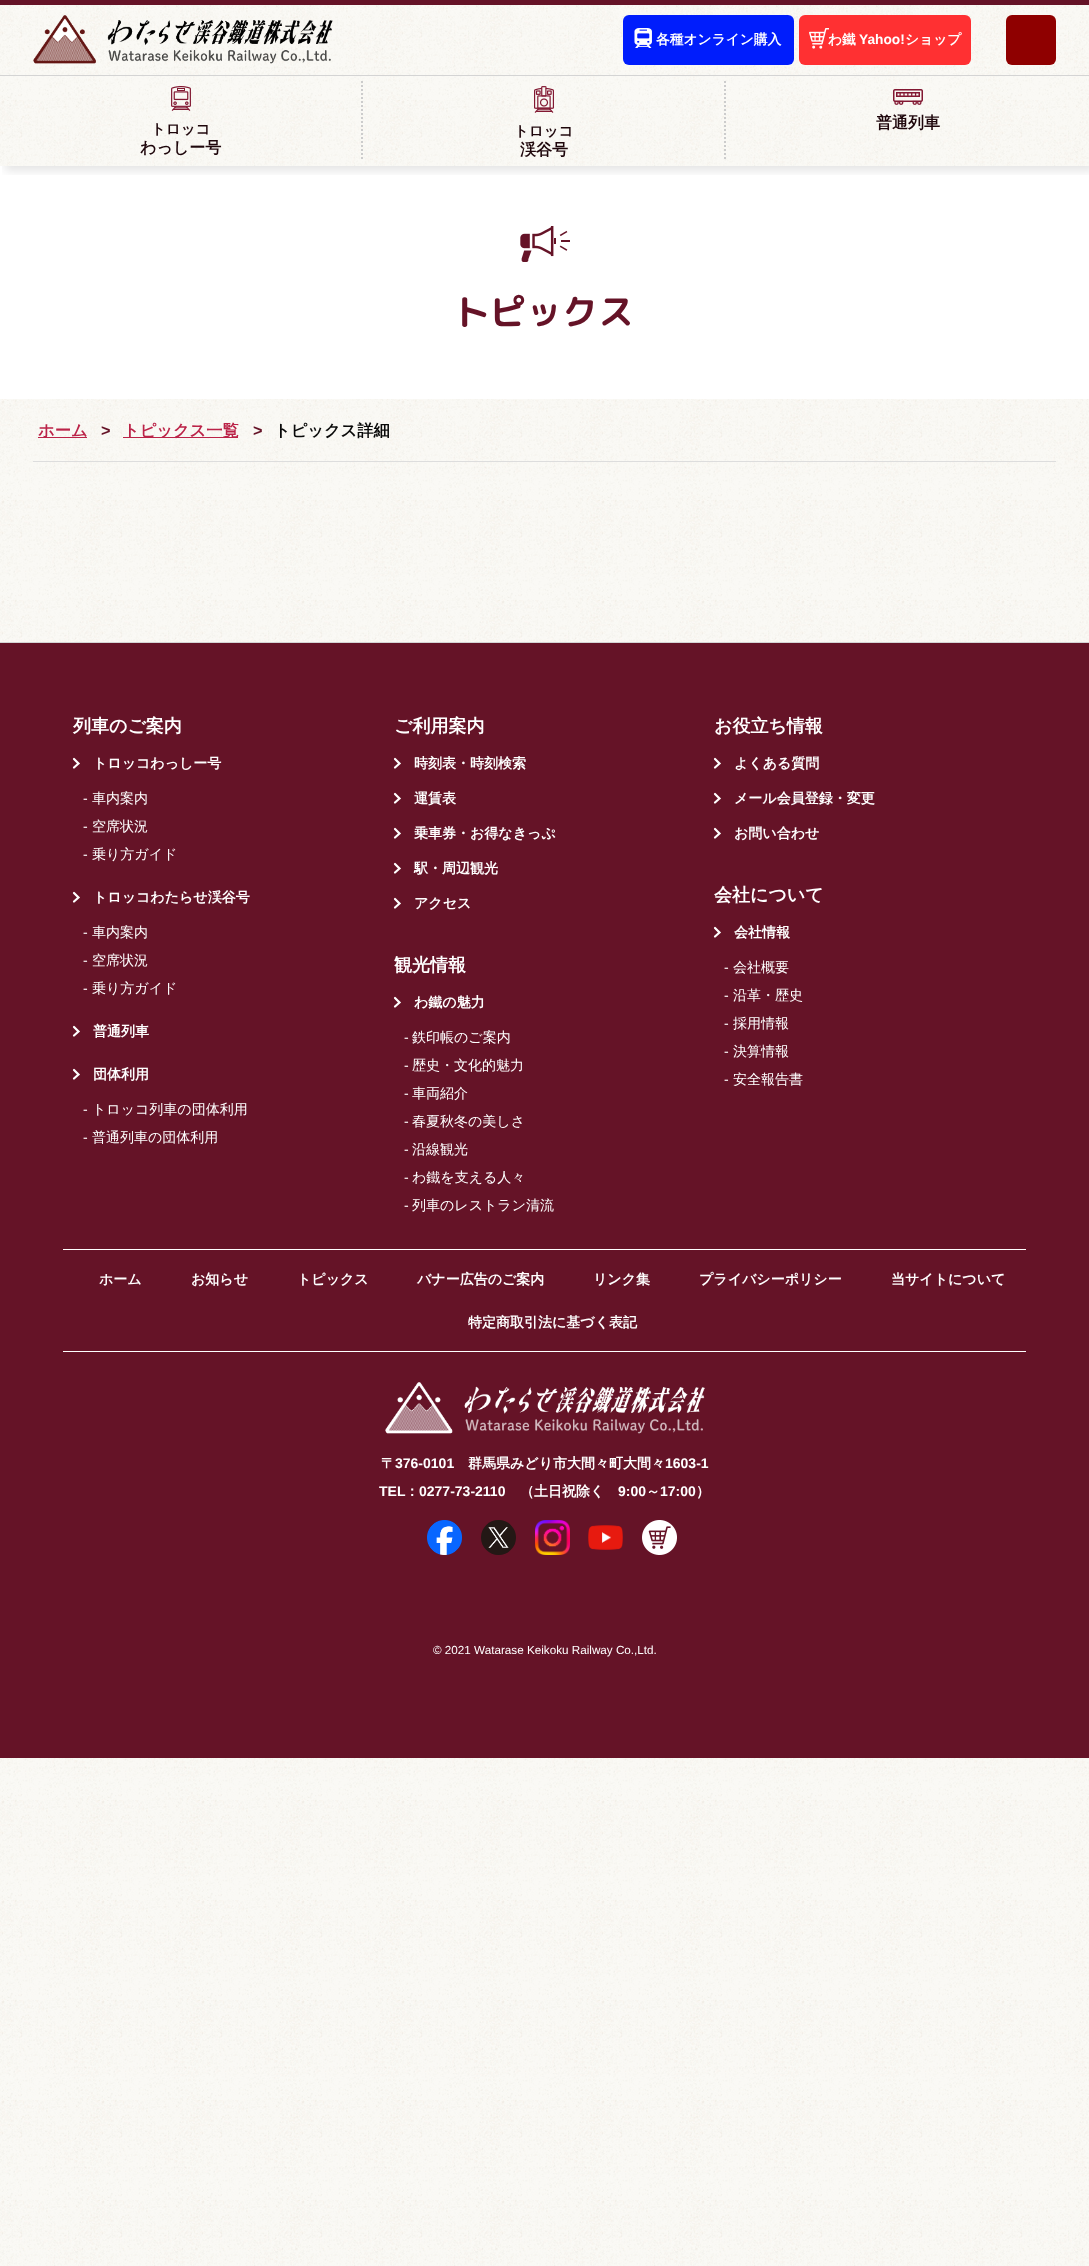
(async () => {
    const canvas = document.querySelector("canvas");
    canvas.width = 1089;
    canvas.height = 2266;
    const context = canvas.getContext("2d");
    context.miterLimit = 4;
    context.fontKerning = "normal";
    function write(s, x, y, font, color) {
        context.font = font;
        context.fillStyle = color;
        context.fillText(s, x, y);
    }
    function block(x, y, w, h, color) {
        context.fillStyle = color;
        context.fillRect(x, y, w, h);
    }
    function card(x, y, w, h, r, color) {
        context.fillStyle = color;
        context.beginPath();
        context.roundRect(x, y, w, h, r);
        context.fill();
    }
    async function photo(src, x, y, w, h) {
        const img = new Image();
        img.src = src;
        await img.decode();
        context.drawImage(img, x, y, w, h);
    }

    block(0, 0, 1089, 2266, "rgb(255, 255, 255)");
    await photo("media/1.png", 0, 5, 1089, 2261);
    block(0, 0, 1089, 5, "rgb(101, 19, 39)");
    block(0, 75, 1089, 1, "rgb(212, 212, 212)");
    await photo("media/2.png", 33, 15, 300, 49);
    card(623, 15, 171, 50, 6, "rgb(0, 29, 252)");
    await photo("media/3.png", 634, 28, 18, 20);
    write("各種オンライン購入", 656, 44, "bold 13.75px WenQuanYi Zen Hei", "rgb(255, 255, 255)");
    card(799, 15, 172, 50, 6, "rgb(255, 48, 50)");
    await photo("media/4.png", 809, 28, 20, 21);
    write("わ鐵", 828, 44, "bold 13.75px WenQuanYi Zen Hei", "rgb(255, 255, 255)");
    write("Yahoo!", 859, 44, "bold 13.75px Liberation Sans", "rgb(255, 255, 255)");
    write("ショップ", 905, 44, "bold 13.75px WenQuanYi Zen Hei", "rgb(255, 255, 255)");
    card(1006, 15, 50, 50, 6, "rgb(143, 0, 0)");
    block(0, 166, 1089, 233, "rgb(255, 255, 255)");
    context.save();
    context.beginPath();
    context.rect(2, 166, 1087, 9);
    context.clip();
    context.fillStyle = "rgba(0, 0, 0, 0.1)";
    context.filter = "blur(5px)";
    context.beginPath();
    context.rect(5, 81, 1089, 90);
    context.fill();
    context.filter = "none";
    context.restore();
    context.beginPath();
    context.moveTo(362, 81);
    context.lineTo(362, 161);
    context.strokeStyle = "rgb(204, 204, 204)";
    context.lineWidth = 2;
    context.setLineDash([2, 2]);
    context.stroke();
    await photo("media/5.png", 171, 86, 20, 25);
    write("トロッコ", 151, 134, "bold 14.5px WenQuanYi Zen Hei", "rgb(30, 6, 11)");
    write("わっしー号", 140, 153, "bold 16px WenQuanYi Zen Hei", "rgb(30, 6, 11)");
    context.beginPath();
    context.moveTo(725, 81);
    context.lineTo(725, 161);
    context.stroke();
    await photo("media/6.png", 534, 86, 20, 27);
    write("トロッコ", 514, 136, "bold 14.5px WenQuanYi Zen Hei", "rgb(30, 6, 11)");
    write("渓谷号", 520, 155, "bold 16px WenQuanYi Zen Hei", "rgb(30, 6, 11)");
    await photo("media/7.png", 893, 89, 30, 16);
    write("普通列車", 876, 128, "bold 16px WenQuanYi Zen Hei", "rgb(30, 6, 11)");
    await photo("media/8.png", 520, 226, 50, 36);
    write("トピックス", 454, 325, "bold 36px 'Rounded Mplus 1c Bold'", "rgb(101, 19, 39)");
    block(33, 461, 1023, 1, "rgb(221, 221, 221)");
    block(38, 437, 49, 1, "rgb(187, 35, 72)");
    write("ホーム", 38, 436, "bold 16.25px WenQuanYi Zen Hei", "rgb(187, 35, 72)");
    write(">", 101, 436, "bold 16.25px Liberation Sans", "rgb(101, 19, 39)");
    block(123, 437, 115, 1, "rgb(187, 35, 72)");
    write("トピックス一覧", 123, 436, "bold 16.25px WenQuanYi Zen Hei", "rgb(187, 35, 72)");
    write(">", 253, 436, "bold 16.25px Liberation Sans", "rgb(101, 19, 39)");
    write("トピックス詳細", 274, 436, "bold 16.25px WenQuanYi Zen Hei", "rgb(9, 9, 9)");
    block(0, 643, 1089, 1115, "rgb(101, 19, 39)");
    block(0, 642, 1089, 1, "rgb(212, 212, 212)");
    write("列車のご案内", 73, 732, "bold 18px WenQuanYi Zen Hei", "rgb(255, 255, 255)");
    context.beginPath();
    context.moveTo(74, 767.5);
    context.lineTo(78.5, 763.5);
    context.lineTo(74, 759);
    context.strokeStyle = "rgb(255, 255, 255)";
    context.lineWidth = 2.2;
    context.lineCap = "round";
    context.setLineDash([]);
    context.stroke();
    write("トロッコわっしー号", 93, 768, "bold 14px WenQuanYi Zen Hei", "rgb(255, 255, 255)");
    write("-", 83, 803, "14px Liberation Sans", "rgb(255, 255, 255)");
    write("車内案内", 92, 803, "500 14px WenQuanYi Zen Hei", "rgb(255, 255, 255)");
    write("-", 83, 831, "14px Liberation Sans", "rgb(255, 255, 255)");
    write("空席状況", 92, 831, "500 14px WenQuanYi Zen Hei", "rgb(255, 255, 255)");
    write("-", 83, 859, "14px Liberation Sans", "rgb(255, 255, 255)");
    write("乗り方ガイド", 92, 859, "500 14px WenQuanYi Zen Hei", "rgb(255, 255, 255)");
    context.beginPath();
    context.moveTo(74, 901.5);
    context.lineTo(78.5, 897.5);
    context.lineTo(74, 893);
    context.stroke();
    write("トロッコわたらせ渓谷号", 93, 902, "bold 14px WenQuanYi Zen Hei", "rgb(255, 255, 255)");
    write("-", 83, 937, "14px Liberation Sans", "rgb(255, 255, 255)");
    write("車内案内", 92, 937, "500 14px WenQuanYi Zen Hei", "rgb(255, 255, 255)");
    write("-", 83, 965, "14px Liberation Sans", "rgb(255, 255, 255)");
    write("空席状況", 92, 965, "500 14px WenQuanYi Zen Hei", "rgb(255, 255, 255)");
    write("-", 83, 993, "14px Liberation Sans", "rgb(255, 255, 255)");
    write("乗り方ガイド", 92, 993, "500 14px WenQuanYi Zen Hei", "rgb(255, 255, 255)");
    context.beginPath();
    context.moveTo(74, 1035.5);
    context.lineTo(78.5, 1031.5);
    context.lineTo(74, 1027);
    context.moveTo(74, 1078.5);
    context.lineTo(78.5, 1074.5);
    context.lineTo(74, 1070);
    context.stroke();
    write("普通列車", 93, 1036, "bold 14px WenQuanYi Zen Hei", "rgb(255, 255, 255)");
    write("団体利用", 93, 1079, "bold 14px WenQuanYi Zen Hei", "rgb(255, 255, 255)");
    write("-", 83, 1114, "14px Liberation Sans", "rgb(255, 255, 255)");
    write("トロッコ列車の団体利用", 92, 1114, "500 14px WenQuanYi Zen Hei", "rgb(255, 255, 255)");
    write("-", 83, 1142, "14px Liberation Sans", "rgb(255, 255, 255)");
    write("普通列車の団体利用", 92, 1142, "500 14px WenQuanYi Zen Hei", "rgb(255, 255, 255)");
    write("ご利用案内", 394, 732, "bold 18px WenQuanYi Zen Hei", "rgb(255, 255, 255)");
    context.beginPath();
    context.moveTo(395, 767.5);
    context.lineTo(399.5, 763.5);
    context.lineTo(395, 759);
    context.moveTo(395, 802.5);
    context.lineTo(399.5, 798.5);
    context.lineTo(395, 794);
    context.stroke();
    write("時刻表・時刻検索", 414, 768, "bold 14px WenQuanYi Zen Hei", "rgb(255, 255, 255)");
    write("運賃表", 414, 803, "bold 14px WenQuanYi Zen Hei", "rgb(255, 255, 255)");
    context.beginPath();
    context.moveTo(395, 837.5);
    context.lineTo(399.5, 833.5);
    context.lineTo(395, 829);
    context.moveTo(395, 872.5);
    context.lineTo(399.5, 868.5);
    context.lineTo(395, 864);
    context.stroke();
    write("乗車券・お得なきっぷ", 414, 838, "bold 14px WenQuanYi Zen Hei", "rgb(255, 255, 255)");
    write("駅・周辺観光", 414, 873, "bold 14px WenQuanYi Zen Hei", "rgb(255, 255, 255)");
    context.beginPath();
    context.moveTo(395, 907.5);
    context.lineTo(399.5, 903.5);
    context.lineTo(395, 899);
    context.stroke();
    write("アクセス", 414, 908, "bold 14px WenQuanYi Zen Hei", "rgb(255, 255, 255)");
    write("観光情報", 394, 971, "bold 18px WenQuanYi Zen Hei", "rgb(255, 255, 255)");
    context.beginPath();
    context.moveTo(395, 1006.5);
    context.lineTo(399.5, 1002.5);
    context.lineTo(395, 998);
    context.stroke();
    write("わ鐵の魅力", 414, 1007, "bold 14px WenQuanYi Zen Hei", "rgb(255, 255, 255)");
    write("-", 404, 1042, "14px Liberation Sans", "rgb(255, 255, 255)");
    write("鉄印帳のご案内", 412, 1042, "500 14px WenQuanYi Zen Hei", "rgb(255, 255, 255)");
    write("-", 404, 1070, "14px Liberation Sans", "rgb(255, 255, 255)");
    write("歴史・文化的魅力", 412, 1070, "500 14px WenQuanYi Zen Hei", "rgb(255, 255, 255)");
    write("-", 404, 1098, "14px Liberation Sans", "rgb(255, 255, 255)");
    write("車両紹介", 412, 1098, "500 14px WenQuanYi Zen Hei", "rgb(255, 255, 255)");
    write("-", 404, 1126, "14px Liberation Sans", "rgb(255, 255, 255)");
    write("春夏秋冬の美しさ", 412, 1126, "500 14px WenQuanYi Zen Hei", "rgb(255, 255, 255)");
    write("-", 404, 1154, "14px Liberation Sans", "rgb(255, 255, 255)");
    write("沿線観光", 412, 1154, "500 14px WenQuanYi Zen Hei", "rgb(255, 255, 255)");
    write("-", 404, 1182, "14px Liberation Sans", "rgb(255, 255, 255)");
    write("わ鐵を支える人々", 412, 1182, "500 14px WenQuanYi Zen Hei", "rgb(255, 255, 255)");
    write("-", 404, 1210, "14px Liberation Sans", "rgb(255, 255, 255)");
    write("列車のレストラン清流", 412, 1210, "500 14px WenQuanYi Zen Hei", "rgb(255, 255, 255)");
    write("お役立ち情報", 714, 732, "bold 18px WenQuanYi Zen Hei", "rgb(255, 255, 255)");
    context.beginPath();
    context.moveTo(715, 767.5);
    context.lineTo(719.5, 763.5);
    context.lineTo(715, 759);
    context.moveTo(715, 802.5);
    context.lineTo(719.5, 798.5);
    context.lineTo(715, 794);
    context.stroke();
    write("よくある質問", 734, 768, "bold 14px WenQuanYi Zen Hei", "rgb(255, 255, 255)");
    write("メール会員登録・変更", 734, 803, "bold 14px WenQuanYi Zen Hei", "rgb(255, 255, 255)");
    context.beginPath();
    context.moveTo(715, 837.5);
    context.lineTo(719.5, 833.5);
    context.lineTo(715, 829);
    context.stroke();
    write("お問い合わせ", 734, 838, "bold 14px WenQuanYi Zen Hei", "rgb(255, 255, 255)");
    write("会社について", 714, 901, "bold 18px WenQuanYi Zen Hei", "rgb(255, 255, 255)");
    context.beginPath();
    context.moveTo(715, 936.5);
    context.lineTo(719.5, 932.5);
    context.lineTo(715, 928);
    context.stroke();
    write("会社情報", 734, 937, "bold 14px WenQuanYi Zen Hei", "rgb(255, 255, 255)");
    write("-", 724, 972, "14px Liberation Sans", "rgb(255, 255, 255)");
    write("会社概要", 733, 972, "500 14px WenQuanYi Zen Hei", "rgb(255, 255, 255)");
    write("-", 724, 1000, "14px Liberation Sans", "rgb(255, 255, 255)");
    write("沿革・歴史", 733, 1000, "500 14px WenQuanYi Zen Hei", "rgb(255, 255, 255)");
    write("-", 724, 1028, "14px Liberation Sans", "rgb(255, 255, 255)");
    write("採用情報", 733, 1028, "500 14px WenQuanYi Zen Hei", "rgb(255, 255, 255)");
    write("-", 724, 1056, "14px Liberation Sans", "rgb(255, 255, 255)");
    write("決算情報", 733, 1056, "500 14px WenQuanYi Zen Hei", "rgb(255, 255, 255)");
    write("-", 724, 1084, "14px Liberation Sans", "rgb(255, 255, 255)");
    write("安全報告書", 733, 1084, "500 14px WenQuanYi Zen Hei", "rgb(255, 255, 255)");
    block(63, 1249, 963, 1, "rgb(255, 255, 255)");
    block(63, 1351, 963, 1, "rgb(255, 255, 255)");
    write("ホーム", 99, 1284, "bold 14px WenQuanYi Zen Hei", "rgb(255, 255, 255)");
    write("お知らせ", 191, 1284, "bold 14px WenQuanYi Zen Hei", "rgb(255, 255, 255)");
    write("トピックス", 297, 1284, "bold 14px WenQuanYi Zen Hei", "rgb(255, 255, 255)");
    write("バナー広告のご案内", 417, 1284, "bold 14px WenQuanYi Zen Hei", "rgb(255, 255, 255)");
    write("リンク集", 593, 1284, "bold 14px WenQuanYi Zen Hei", "rgb(255, 255, 255)");
    write("プライバシーポリシー", 699, 1284, "bold 14px WenQuanYi Zen Hei", "rgb(255, 255, 255)");
    write("当サイトについて", 891, 1284, "bold 14px WenQuanYi Zen Hei", "rgb(255, 255, 255)");
    write("特定商取引法に基づく表記", 468, 1327, "bold 14px WenQuanYi Zen Hei", "rgb(255, 255, 255)");
    await photo("media/9.png", 385, 1382, 320, 52);
    write("〒", 381, 1468, "bold 14px WenQuanYi Zen Hei", "rgb(255, 255, 255)");
    write("376-0101", 395, 1468, "bold 14px Liberation Sans", "rgb(255, 255, 255)");
    write("群馬県みどり市大間々町大間々", 468, 1468, "bold 14px WenQuanYi Zen Hei", "rgb(255, 255, 255)");
    write("1603-1", 665, 1468, "bold 14px Liberation Sans", "rgb(255, 255, 255)");
    write("TEL", 379, 1496, "bold 14px Liberation Sans", "rgb(255, 255, 255)");
    write("：", 405, 1496, "bold 14px WenQuanYi Zen Hei", "rgb(255, 255, 255)");
    write("0277-73-2110", 419, 1496, "bold 14px Liberation Sans", "rgb(255, 255, 255)");
    write("（土日祝除く", 520, 1496, "bold 14px WenQuanYi Zen Hei", "rgb(255, 255, 255)");
    write("9:00", 618, 1496, "bold 14px Liberation Sans", "rgb(255, 255, 255)");
    write("～", 646, 1496, "bold 14px WenQuanYi Zen Hei", "rgb(255, 255, 255)");
    write("17:00", 660, 1496, "bold 14px Liberation Sans", "rgb(255, 255, 255)");
    write("）", 696, 1496, "bold 14px WenQuanYi Zen Hei", "rgb(255, 255, 255)");
    await photo("media/10.png", 427, 1520, 35, 35);
    await photo("media/11.png", 481, 1520, 35, 35);
    await photo("media/12.png", 535, 1520, 35, 35);
    await photo("media/13.png", 588, 1525, 35, 25);
    await photo("media/14.png", 642, 1520, 35, 35);
    write("© 2021 Watarase Keikoku Railway Co.,Ltd.", 433, 1654, "11.7px Liberation Sans", "rgb(255, 255, 255)");
})();
